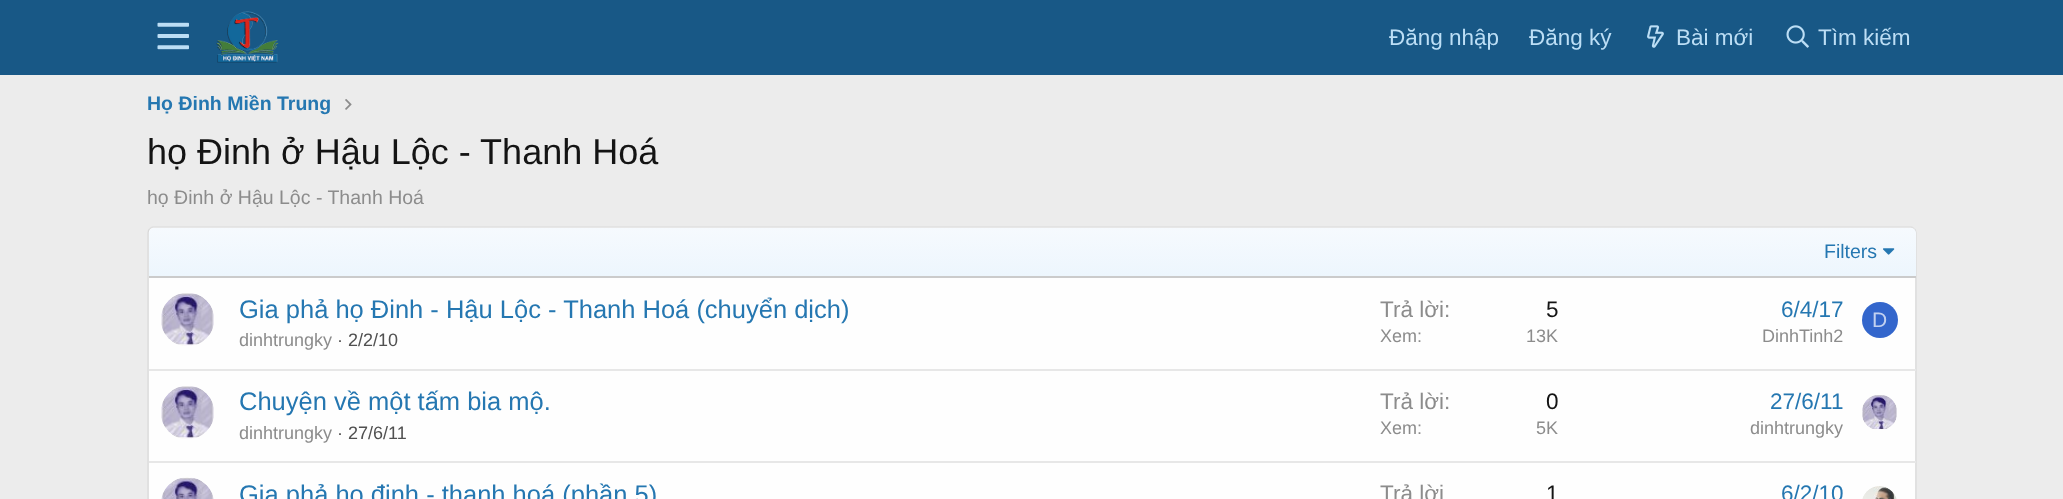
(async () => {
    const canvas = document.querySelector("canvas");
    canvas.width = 2063;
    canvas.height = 499;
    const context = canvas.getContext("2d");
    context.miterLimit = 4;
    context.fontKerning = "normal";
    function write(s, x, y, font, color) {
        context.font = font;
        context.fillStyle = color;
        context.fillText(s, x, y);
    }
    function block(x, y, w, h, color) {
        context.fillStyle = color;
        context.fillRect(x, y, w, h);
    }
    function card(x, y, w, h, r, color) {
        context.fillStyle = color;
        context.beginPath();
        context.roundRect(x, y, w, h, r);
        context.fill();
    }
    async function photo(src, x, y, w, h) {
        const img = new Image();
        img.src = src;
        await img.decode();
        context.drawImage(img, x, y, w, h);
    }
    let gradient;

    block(0, 0, 2063, 499, "rgb(236, 236, 236)");
    block(0, 0, 2063, 75, "rgb(24, 88, 134)");
    await photo("media/1.png", 157, 22, 32, 28);
    await photo("media/2.png", 216, 11, 63, 52);
    write("Đăng nhập", 1389, 45, "22.5px Liberation Sans", "rgb(188, 222, 245)");
    write("Đăng ký", 1529, 45, "22.5px Liberation Sans", "rgb(188, 222, 245)");
    await photo("media/3.png", 1647, 25, 17, 23);
    write("Bài mới", 1676, 45, "22.5px Liberation Sans", "rgb(188, 222, 245)");
    await photo("media/4.png", 1786, 25, 23, 23);
    write("Tìm kiếm", 1818, 45, "22.5px Liberation Sans", "rgb(188, 222, 245)");
    write("Họ Đinh Miền Trung", 147, 110, "bold 19.5px Liberation Sans", "rgb(37, 119, 177)");
    await photo("media/5.png", 345, 99, 7, 11);
    write("họ Đinh ở Hậu Lộc - Thanh Hoá", 147, 164, "36px Liberation Sans", "rgb(20, 20, 20)");
    write("họ Đinh ở Hậu Lộc - Thanh Hoá", 147, 204, "19.5px Liberation Sans", "rgb(140, 140, 140)");
    card(147, 227, 1770, 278, 6, "rgb(254, 254, 254)");
    context.beginPath();
    context.moveTo(149.5, 229);
    context.bezierCurveTo(150.5, 228, 151.5, 227, 153, 227);
    context.lineTo(1911, 227);
    context.bezierCurveTo(1912.5, 227, 1913.5, 228, 1914.5, 229);
    context.strokeStyle = "rgb(223, 223, 223)";
    context.lineWidth = 1.5;
    context.stroke();
    context.beginPath();
    context.moveTo(1914.5, 229);
    context.bezierCurveTo(1915.5, 230, 1916, 231, 1916, 232.5);
    context.lineTo(1916, 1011);
    context.bezierCurveTo(1916, 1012.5, 1915.5, 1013.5, 1914.5, 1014.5);
    context.strokeStyle = "rgb(216, 216, 216)";
    context.stroke();
    context.beginPath();
    context.moveTo(149.5, 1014.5);
    context.bezierCurveTo(148.5, 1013.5, 148, 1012.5, 148, 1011);
    context.lineTo(148, 232.5);
    context.bezierCurveTo(148, 231, 148.5, 230, 149.5, 229);
    context.stroke();
    gradient = context.createLinearGradient(1032, 276, 1032, 228);
    gradient.addColorStop(0, "rgb(237, 246, 253)");
    gradient.addColorStop(1, "rgb(246, 250, 254)");
    context.fillStyle = gradient;
    context.beginPath();
    context.roundRect(149, 228, 1767, 48, [5, 5, 0, 0]);
    context.fill();
    block(149, 276, 1767, 2, "rgb(203, 203, 203)");
    write("Filters", 1824, 258, "19.5px Liberation Sans", "rgb(37, 119, 177)");
    await photo("media/6.png", 1883, 248, 12, 7);
    await photo("media/7.png", 161, 293, 53, 53);
    write("Gia phả họ Đinh - Hậu Lộc - Thanh Hoá (chuyển dịch)", 239, 318, "25.5px Liberation Sans", "rgb(37, 119, 177)");
    write("dinhtrungky", 239, 346, "18px Liberation Sans", "rgb(140, 140, 140)");
    write("· 2/2/10", 337, 346, "18px Liberation Sans", "rgb(80, 80, 80)");
    write("Trả lời:", 1380, 317, "22.5px Liberation Sans", "rgb(140, 140, 140)");
    write("5", 1546, 317, "22.5px Liberation Sans", "rgb(20, 20, 20)");
    write("Xem:", 1380, 342, "18px Liberation Sans", "rgb(140, 140, 140)");
    write("13K", 1526, 342, "18px Liberation Sans", "rgb(140, 140, 140)");
    write("6/4/17", 1781, 317, "22.5px Liberation Sans", "rgb(37, 119, 177)");
    write("DinhTinh2", 1762, 342, "18px Liberation Sans", "rgb(140, 140, 140)");
    context.fillStyle = "rgb(51, 102, 204)";
    context.beginPath();
    context.arc(1880, 320, 18, 0, Math.PI * 2);
    context.fill();
    write("D", 1872, 327, "21px Liberation Sans", "rgb(194, 209, 240)");
    block(149, 369, 1767, 2, "rgb(231, 231, 231)");
    await photo("media/8.png", 161, 386, 53, 53);
    write("Chuyện về một tấm bia mộ.", 239, 410, "25.5px Liberation Sans", "rgb(37, 119, 177)");
    write("dinhtrungky", 239, 439, "18px Liberation Sans", "rgb(140, 140, 140)");
    write("· 27/6/11", 337, 439, "18px Liberation Sans", "rgb(80, 80, 80)");
    write("Trả lời:", 1380, 409, "22.5px Liberation Sans", "rgb(140, 140, 140)");
    write("0", 1546, 409, "22.5px Liberation Sans", "rgb(20, 20, 20)");
    write("Xem:", 1380, 434, "18px Liberation Sans", "rgb(140, 140, 140)");
    write("5K", 1536, 434, "18px Liberation Sans", "rgb(140, 140, 140)");
    write("27/6/11", 1770, 409, "22.5px Liberation Sans", "rgb(37, 119, 177)");
    write("dinhtrungky", 1750, 434, "18px Liberation Sans", "rgb(140, 140, 140)");
    await photo("media/9.png", 1862, 395, 35, 35);
    block(149, 461, 1767, 2, "rgb(231, 231, 231)");
    await photo("media/10.png", 161, 477, 53, 22);
    write("Gia phả họ đinh - thanh hoá (phần 5)", 239, 503, "25.5px Liberation Sans", "rgb(37, 119, 177)");
    write("Trả lời", 1380, 501, "22.5px Liberation Sans", "rgb(140, 140, 140)");
    write("1", 1546, 501, "22.5px Liberation Sans", "rgb(20, 20, 20)");
    write("6/2/10", 1781, 501, "22.5px Liberation Sans", "rgb(37, 119, 177)");
    await photo("media/11.png", 1862, 486, 35, 13);
})();
